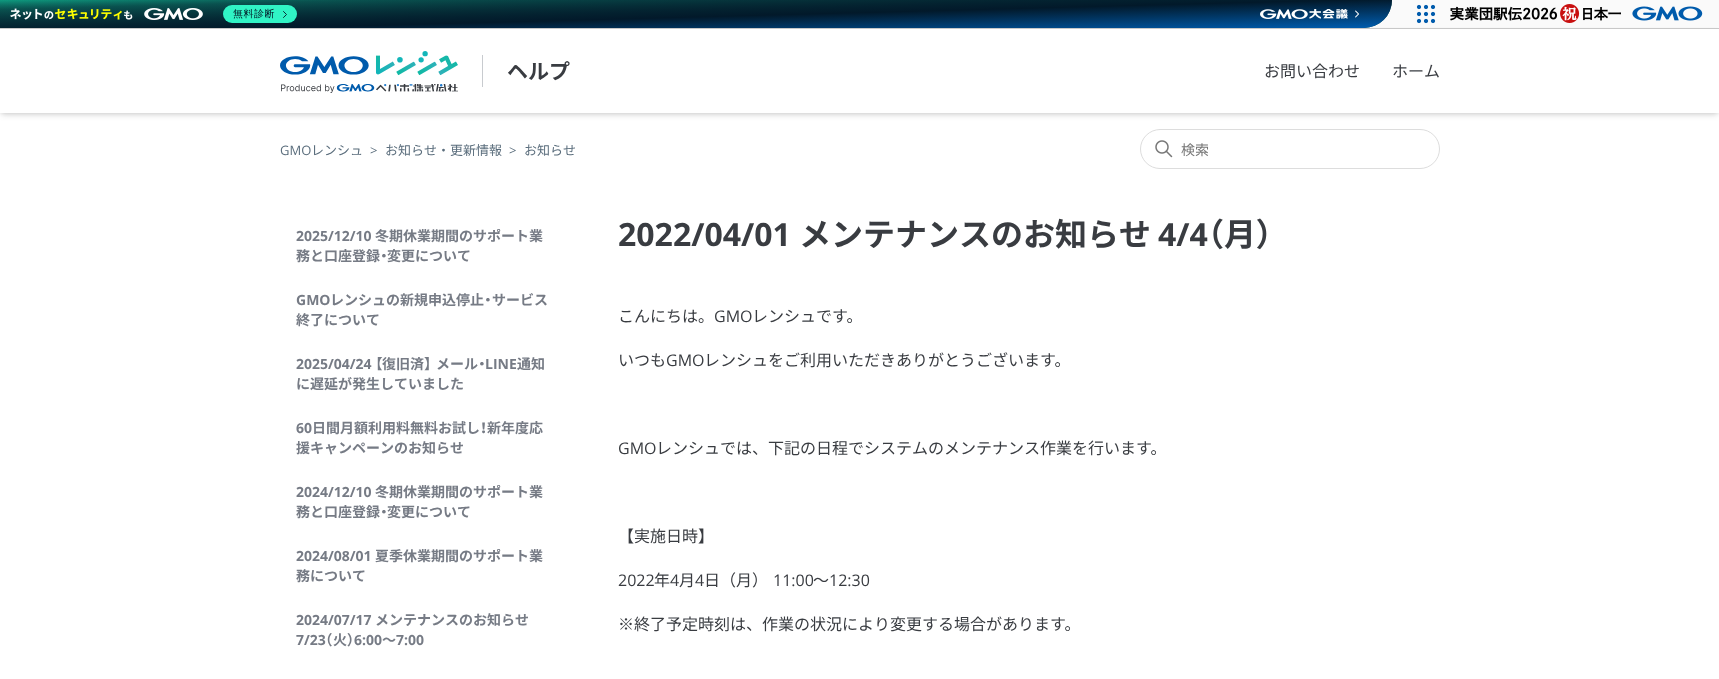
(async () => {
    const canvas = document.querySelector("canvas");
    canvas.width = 1719;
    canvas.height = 679;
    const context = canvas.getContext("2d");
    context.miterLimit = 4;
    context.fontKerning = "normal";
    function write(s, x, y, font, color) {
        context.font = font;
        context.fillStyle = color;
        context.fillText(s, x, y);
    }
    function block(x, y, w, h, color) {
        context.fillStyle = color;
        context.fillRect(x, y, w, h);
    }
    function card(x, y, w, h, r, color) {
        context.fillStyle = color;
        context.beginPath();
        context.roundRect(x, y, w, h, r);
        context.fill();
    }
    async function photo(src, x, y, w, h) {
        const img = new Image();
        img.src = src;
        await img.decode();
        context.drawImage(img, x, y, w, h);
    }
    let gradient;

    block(0, 0, 1719, 679, "rgb(255, 255, 255)");
    context.fillStyle = "rgba(0, 0, 0, 0.12)";
    context.filter = "blur(3px)";
    context.beginPath();
    context.rect(2, 35, 1715, 80);
    context.fill();
    context.filter = "none";
    context.filter = "blur(2px)";
    context.beginPath();
    context.rect(0, 29, 1719, 84);
    context.fill();
    context.filter = "none";
    block(1364, 0, 355, 27, "rgb(250, 250, 250)");
    block(0, 28, 1719, 1, "rgb(200, 200, 200)");
    gradient = context.createLinearGradient(695, -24, 697, 52);
    gradient.addColorStop(0, "rgb(19, 212, 165)");
    gradient.addColorStop(0.2, "rgb(14, 115, 101)");
    gradient.addColorStop(0.46, "rgb(11, 77, 75)");
    context.fillStyle = gradient;
    context.beginPath();
    context.roundRect(0, 0, 1392, 28, [0, 0, 28, 0]);
    context.fill();
    gradient = context.createLinearGradient(697, 52, 695, -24);
    gradient.addColorStop(0, "rgb(1, 156, 217)");
    gradient.addColorStop(0.09, "rgb(0, 91, 172)");
    gradient.addColorStop(0.46, "rgb(2, 25, 42)");
    gradient.addColorStop(1, "rgba(2, 25, 42, 0)");
    context.fillStyle = gradient;
    context.beginPath();
    context.roundRect(0, 0, 1392, 28, [0, 0, 28, 0]);
    context.fill();
    await photo("media/1.png", 10, 8, 193, 12);
    card(223, 5, 74, 18, 9, "rgb(48, 244, 197)");
    context.letterSpacing = "0.5px";
    write("無料診断", 233, 17, "500 10px WenQuanYi Zen Hei", "rgb(2, 23, 37)");
    context.beginPath();
    context.moveTo(283.5, 11.5);
    context.lineTo(286.5, 14.5);
    context.lineTo(283.5, 17.5);
    context.strokeStyle = "rgb(2, 23, 37)";
    context.lineWidth = 0.9;
    context.lineCap = "round";
    context.lineJoin = "round";
    context.stroke();
    await photo("media/2.png", 1260, 9, 99, 10);
    await photo("media/3.png", 1416, 4, 20, 20);
    await photo("media/4.png", 1450, 4, 253, 19);
    block(0, 29, 1719, 84, "rgb(255, 255, 255)");
    await photo("media/5.png", 280, 51, 178, 42);
    block(482, 55, 1, 32, "rgb(200, 203, 207)");
    context.letterSpacing = "0px";
    write("ヘルプ", 507, 79, "bold 21px Noto Sans JP", "rgb(57, 60, 65)");
    write("お問い合わせ", 1264, 77, "16px Noto Sans JP", "rgb(57, 60, 65)");
    write("ホーム", 1392, 77, "16px Noto Sans JP", "rgb(57, 60, 65)");
    write("GMO", 280, 155, "13px Open Sans", "rgb(90, 109, 124)");
    write("レンシュ", 311, 155, "13px Noto Sans JP", "rgb(90, 109, 124)");
    write(">", 370, 155, "13px Open Sans", "rgb(90, 109, 124)");
    write("お知らせ・更新情報", 385, 155, "13px Noto Sans JP", "rgb(90, 109, 124)");
    write(">", 509, 155, "13px Open Sans", "rgb(90, 109, 124)");
    write("お知らせ", 524, 155, "13px Noto Sans JP", "rgb(90, 109, 124)");
    context.beginPath();
    context.roundRect(1140.5, 129.5, 299, 39, 19.5);
    context.strokeStyle = "rgb(221, 221, 221)";
    context.lineWidth = 1;
    context.lineJoin = "miter";
    context.stroke();
    await photo("media/6.png", 1155, 140, 18, 18);
    write("検索", 1181, 155, "14px Noto Sans JP", "rgb(117, 117, 117)");
    write("2025/12/10", 296, 241, "bold 14px Open Sans", "rgb(118, 123, 133)");
    write("冬期休業期間のサポート業", 375, 241, "bold 14px Noto Sans JP", "rgb(118, 123, 133)");
    write("務と口座登録", 296, 261, "bold 14px Noto Sans JP", "rgb(118, 123, 133)");
    write("・", 380, 261, "bold 14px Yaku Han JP", "rgb(118, 123, 133)");
    write("変更について", 387, 261, "bold 14px Noto Sans JP", "rgb(118, 123, 133)");
    write("GMO", 296, 305, "bold 14px Open Sans", "rgb(118, 123, 133)");
    write("レンシュの新規申込停止", 330, 305, "bold 14px Noto Sans JP", "rgb(118, 123, 133)");
    write("・", 484, 305, "bold 14px Yaku Han JP", "rgb(118, 123, 133)");
    write("サービス", 492, 305, "bold 14px Noto Sans JP", "rgb(118, 123, 133)");
    write("終了について", 296, 325, "bold 14px Noto Sans JP", "rgb(118, 123, 133)");
    write("2025/04/24", 296, 369, "bold 14px Open Sans", "rgb(118, 123, 133)");
    write("【", 375, 369, "bold 14px Yaku Han JP", "rgb(118, 123, 133)");
    write("復旧済", 382, 369, "bold 14px Noto Sans JP", "rgb(118, 123, 133)");
    write("】", 424, 369, "bold 14px Yaku Han JP", "rgb(118, 123, 133)");
    write("メール", 436, 369, "bold 14px Noto Sans JP", "rgb(118, 123, 133)");
    write("・", 478, 369, "bold 14px Yaku Han JP", "rgb(118, 123, 133)");
    write("LINE", 485, 369, "bold 14px Open Sans", "rgb(118, 123, 133)");
    write("通知", 517, 369, "bold 14px Noto Sans JP", "rgb(118, 123, 133)");
    write("に遅延が発生していました", 296, 389, "bold 14px Noto Sans JP", "rgb(118, 123, 133)");
    write("60", 296, 433, "bold 14px Open Sans", "rgb(118, 123, 133)");
    write("日間月額利用料無料お試し", 312, 433, "bold 14px Noto Sans JP", "rgb(118, 123, 133)");
    write("！", 480, 433, "bold 14px Yaku Han JP", "rgb(118, 123, 133)");
    write("新年度応", 487, 433, "bold 14px Noto Sans JP", "rgb(118, 123, 133)");
    write("援キャンペーンのお知らせ", 296, 453, "bold 14px Noto Sans JP", "rgb(118, 123, 133)");
    write("2024/12/10", 296, 497, "bold 14px Open Sans", "rgb(118, 123, 133)");
    write("冬期休業期間のサポート業", 375, 497, "bold 14px Noto Sans JP", "rgb(118, 123, 133)");
    write("務と口座登録", 296, 517, "bold 14px Noto Sans JP", "rgb(118, 123, 133)");
    write("・", 380, 517, "bold 14px Yaku Han JP", "rgb(118, 123, 133)");
    write("変更について", 387, 517, "bold 14px Noto Sans JP", "rgb(118, 123, 133)");
    write("2024/08/01", 296, 561, "bold 14px Open Sans", "rgb(118, 123, 133)");
    write("夏季休業期間のサポート業", 375, 561, "bold 14px Noto Sans JP", "rgb(118, 123, 133)");
    write("務について", 296, 581, "bold 14px Noto Sans JP", "rgb(118, 123, 133)");
    write("2024/07/17", 296, 625, "bold 14px Open Sans", "rgb(118, 123, 133)");
    write("メンテナンスのお知らせ", 375, 625, "bold 14px Noto Sans JP", "rgb(118, 123, 133)");
    write("7/23", 296, 645, "bold 14px Open Sans", "rgb(118, 123, 133)");
    write("（", 325, 645, "bold 14px Yaku Han JP", "rgb(118, 123, 133)");
    write("火", 333, 645, "bold 14px Noto Sans JP", "rgb(118, 123, 133)");
    write("）", 347, 645, "bold 14px Yaku Han JP", "rgb(118, 123, 133)");
    write("6:00", 354, 645, "bold 14px Open Sans", "rgb(118, 123, 133)");
    write("〜", 382, 645, "bold 14px Noto Sans JP", "rgb(118, 123, 133)");
    write("7:00", 396, 645, "bold 14px Open Sans", "rgb(118, 123, 133)");
    write("2022/04/01", 618, 246, "bold 32px Open Sans", "rgb(57, 60, 65)");
    write("メンテナンスのお知らせ", 799, 246, "bold 32px Noto Sans JP", "rgb(57, 60, 65)");
    write("4/4", 1158, 246, "bold 32px Open Sans", "rgb(57, 60, 65)");
    write("（", 1207, 246, "bold 32px Yaku Han JP", "rgb(57, 60, 65)");
    write("月", 1224, 246, "bold 32px Noto Sans JP", "rgb(57, 60, 65)");
    write("）", 1256, 246, "bold 32px Yaku Han JP", "rgb(57, 60, 65)");
    write("こんにちは。", 618, 322, "16px Noto Sans JP", "rgb(57, 60, 65)");
    write("GMO", 714, 322, "16px Open Sans", "rgb(57, 60, 65)");
    write("レンシュです。", 752, 322, "16px Noto Sans JP", "rgb(57, 60, 65)");
    write("いつも", 618, 366, "16px Noto Sans JP", "rgb(57, 60, 65)");
    write("GMO", 666, 366, "16px Open Sans", "rgb(57, 60, 65)");
    write("レンシュをご利用いただきありがとうございます。", 704, 366, "16px Noto Sans JP", "rgb(57, 60, 65)");
    write("GMO", 618, 454, "16px Open Sans", "rgb(57, 60, 65)");
    write("レンシュでは、下記の日程でシステムのメンテナンス作業を行います。", 656, 454, "16px Noto Sans JP", "rgb(57, 60, 65)");
    write("【実施日時】", 618, 542, "16px Noto Sans JP", "rgb(57, 60, 65)");
    write("2022", 618, 586, "16px Open Sans", "rgb(57, 60, 65)");
    write("年", 654, 586, "16px Noto Sans JP", "rgb(57, 60, 65)");
    write("4", 670, 586, "16px Open Sans", "rgb(57, 60, 65)");
    write("月", 679, 586, "16px Noto Sans JP", "rgb(57, 60, 65)");
    write("4", 695, 586, "16px Open Sans", "rgb(57, 60, 65)");
    write("日（月）", 704, 586, "16px Noto Sans JP", "rgb(57, 60, 65)");
    write("11:00", 773, 586, "16px Open Sans", "rgb(57, 60, 65)");
    write("〜", 813, 586, "16px Noto Sans JP", "rgb(57, 60, 65)");
    write("12:30", 829, 586, "16px Open Sans", "rgb(57, 60, 65)");
    write("※終了予定時刻は、作業の状況により変更する場合があります。", 618, 630, "16px Noto Sans JP", "rgb(57, 60, 65)");
})();
